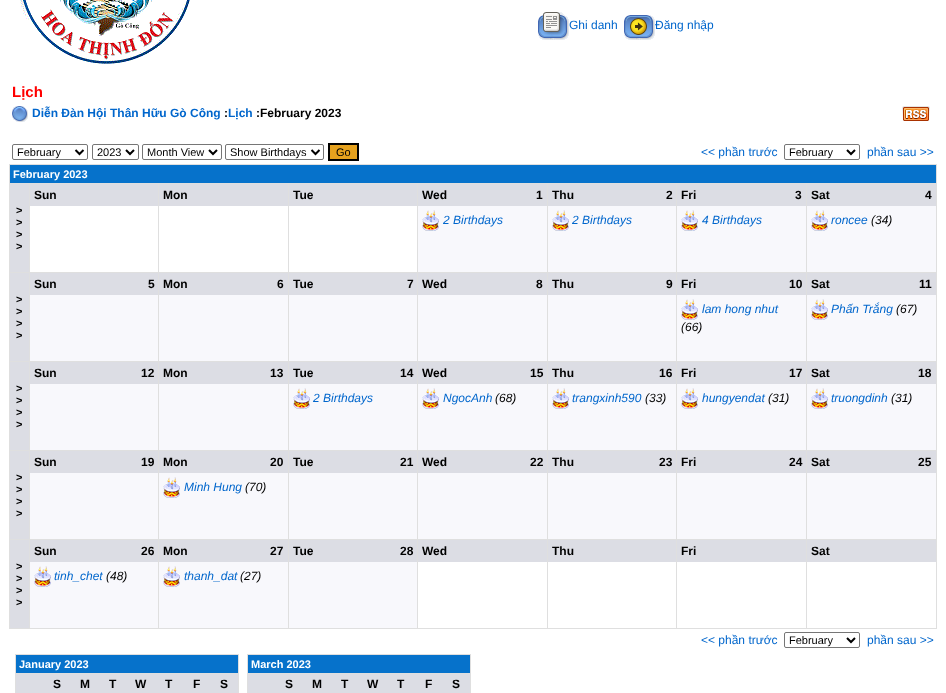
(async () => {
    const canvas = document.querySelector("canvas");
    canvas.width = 946;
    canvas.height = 693;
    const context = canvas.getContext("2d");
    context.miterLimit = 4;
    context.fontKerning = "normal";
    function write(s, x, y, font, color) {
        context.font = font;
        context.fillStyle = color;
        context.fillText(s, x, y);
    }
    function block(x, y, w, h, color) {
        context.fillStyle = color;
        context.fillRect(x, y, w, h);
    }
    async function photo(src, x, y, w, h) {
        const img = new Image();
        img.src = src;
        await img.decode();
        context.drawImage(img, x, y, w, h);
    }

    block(0, 0, 946, 693, "rgb(255, 255, 255)");
    await photo("media/1.png", 20, 0, 170, 64);
    await photo("media/2.png", 538, 12, 31, 28);
    write("Ghi danh", 569, 29, "12px Liberation Sans", "rgb(0, 102, 204)");
    await photo("media/3.png", 624, 15, 31, 25);
    write("Đăng nhập", 655, 29, "12px Liberation Sans", "rgb(0, 102, 204)");
    write("Lịch", 12, 97, "bold 15px Liberation Sans", "rgb(255, 0, 0)");
    await photo("media/4.png", 12, 106, 16, 16);
    write("Diễn Đàn Hội Thân Hữu Gò Công", 32, 117, "bold 12px Liberation Sans", "rgb(0, 102, 204)");
    write(":", 224, 117, "bold 12px Liberation Sans", "rgb(0, 0, 0)");
    write("Lịch", 228, 117, "bold 12px Liberation Sans", "rgb(0, 102, 204)");
    write(":February 2023", 256, 117, "bold 12px Liberation Sans", "rgb(0, 0, 0)");
    await photo("media/5.png", 902, 106, 28, 15);
    context.beginPath();
    context.roundRect(12.5, 144.5, 75, 15, 1.5);
    context.strokeStyle = "rgb(118, 118, 118)";
    context.stroke();
    context.beginPath();
    context.moveTo(75.5, 150);
    context.lineTo(79.5, 154);
    context.lineTo(83.5, 150);
    context.strokeStyle = "rgb(0, 0, 0)";
    context.lineWidth = 2;
    context.stroke();
    write("February", 17, 156, "11px Liberation Sans", "rgb(0, 0, 0)");
    context.beginPath();
    context.roundRect(92.5, 144.5, 46, 15, 1.5);
    context.strokeStyle = "rgb(118, 118, 118)";
    context.lineWidth = 1;
    context.stroke();
    context.beginPath();
    context.moveTo(126, 150);
    context.lineTo(130, 154);
    context.lineTo(134, 150);
    context.strokeStyle = "rgb(0, 0, 0)";
    context.lineWidth = 2;
    context.stroke();
    write("2023", 97, 156, "11px Liberation Sans", "rgb(0, 0, 0)");
    context.beginPath();
    context.roundRect(142.5, 144.5, 79, 15, 1.5);
    context.strokeStyle = "rgb(118, 118, 118)";
    context.lineWidth = 1;
    context.stroke();
    context.beginPath();
    context.moveTo(209, 150);
    context.lineTo(213, 154);
    context.lineTo(217, 150);
    context.strokeStyle = "rgb(0, 0, 0)";
    context.lineWidth = 2;
    context.stroke();
    write("Month View", 147, 156, "11px Liberation Sans", "rgb(0, 0, 0)");
    context.beginPath();
    context.roundRect(225.5, 144.5, 98, 15, 1.5);
    context.strokeStyle = "rgb(118, 118, 118)";
    context.lineWidth = 1;
    context.stroke();
    context.beginPath();
    context.moveTo(311.5, 150);
    context.lineTo(315.5, 154);
    context.lineTo(319.5, 150);
    context.strokeStyle = "rgb(0, 0, 0)";
    context.lineWidth = 2;
    context.stroke();
    write("Show Birthdays", 230, 156, "11px Liberation Sans", "rgb(0, 0, 0)");
    context.fillStyle = "rgb(230, 162, 30)";
    context.beginPath();
    context.rect(329, 144, 29, 16);
    context.fill();
    context.stroke();
    write("Go", 336, 156, "11px Liberation Sans", "rgb(0, 0, 0)");
    write("<< phần trước", 701, 156, "12px Liberation Sans", "rgb(0, 102, 204)");
    context.beginPath();
    context.roundRect(784.5, 144.5, 75, 15, 1.5);
    context.strokeStyle = "rgb(118, 118, 118)";
    context.lineWidth = 1;
    context.stroke();
    context.beginPath();
    context.moveTo(847, 150);
    context.lineTo(851, 154);
    context.lineTo(855, 150);
    context.strokeStyle = "rgb(0, 0, 0)";
    context.lineWidth = 2;
    context.stroke();
    write("February", 789, 156, "11px Liberation Sans", "rgb(0, 0, 0)");
    write("phần sau >>", 867, 156, "12px Liberation Sans", "rgb(0, 102, 204)");
    block(9, 164, 928, 465, "rgb(223, 223, 223)");
    block(10, 165, 926, 18, "rgb(6, 114, 203)");
    write("February 2023", 13, 178, "bold 11px Liberation Sans", "rgb(255, 255, 255)");
    block(10, 184, 19, 88, "rgb(220, 221, 228)");
    write(">", 16, 214, "bold 11px Liberation Sans", "rgb(0, 0, 0)");
    write(">", 16, 226, "bold 11px Liberation Sans", "rgb(0, 0, 0)");
    write(">", 16, 238, "bold 11px Liberation Sans", "rgb(0, 0, 0)");
    write(">", 16, 250, "bold 11px Liberation Sans", "rgb(0, 0, 0)");
    block(30, 206, 128, 66, "rgb(255, 255, 255)");
    block(30, 184, 128, 22, "rgb(220, 221, 228)");
    write("Sun", 34, 199, "bold 12px Liberation Sans", "rgb(0, 0, 0)");
    block(159, 206, 129, 66, "rgb(255, 255, 255)");
    block(159, 184, 129, 22, "rgb(220, 221, 228)");
    write("Mon", 163, 199, "bold 12px Liberation Sans", "rgb(0, 0, 0)");
    block(289, 206, 128, 66, "rgb(255, 255, 255)");
    block(289, 184, 128, 22, "rgb(220, 221, 228)");
    write("Tue", 293, 199, "bold 12px Liberation Sans", "rgb(0, 0, 0)");
    block(418, 206, 129, 66, "rgb(248, 248, 252)");
    block(418, 184, 129, 22, "rgb(220, 221, 228)");
    write("Wed", 422, 199, "bold 12px Liberation Sans", "rgb(0, 0, 0)");
    write("1", 536, 199, "bold 12px Liberation Sans", "rgb(0, 0, 0)");
    await photo("media/6.png", 422, 210, 17, 21);
    write("2 Birthdays", 443, 224, "italic 12px Liberation Sans", "rgb(0, 102, 204)");
    block(548, 206, 128, 66, "rgb(248, 248, 252)");
    block(548, 184, 128, 22, "rgb(220, 221, 228)");
    write("Thu", 552, 199, "bold 12px Liberation Sans", "rgb(0, 0, 0)");
    write("2", 666, 199, "bold 12px Liberation Sans", "rgb(0, 0, 0)");
    await photo("media/6.png", 552, 210, 17, 21);
    write("2 Birthdays", 572, 224, "italic 12px Liberation Sans", "rgb(0, 102, 204)");
    block(677, 206, 129, 66, "rgb(248, 248, 252)");
    block(677, 184, 129, 22, "rgb(220, 221, 228)");
    write("Fri", 681, 199, "bold 12px Liberation Sans", "rgb(0, 0, 0)");
    write("3", 795, 199, "bold 12px Liberation Sans", "rgb(0, 0, 0)");
    await photo("media/6.png", 681, 210, 17, 21);
    write("4 Birthdays", 702, 224, "italic 12px Liberation Sans", "rgb(0, 102, 204)");
    block(807, 206, 129, 66, "rgb(248, 248, 252)");
    block(807, 184, 129, 22, "rgb(220, 221, 228)");
    write("Sat", 811, 199, "bold 12px Liberation Sans", "rgb(0, 0, 0)");
    write("4", 925, 199, "bold 12px Liberation Sans", "rgb(0, 0, 0)");
    await photo("media/6.png", 811, 210, 17, 21);
    write("roncee", 831, 224, "italic 12px Liberation Sans", "rgb(0, 102, 204)");
    write("(34)", 871, 224, "italic 12px Liberation Sans", "rgb(0, 0, 0)");
    block(10, 273, 19, 88, "rgb(220, 221, 228)");
    write(">", 16, 303, "bold 11px Liberation Sans", "rgb(0, 0, 0)");
    write(">", 16, 315, "bold 11px Liberation Sans", "rgb(0, 0, 0)");
    write(">", 16, 327, "bold 11px Liberation Sans", "rgb(0, 0, 0)");
    write(">", 16, 339, "bold 11px Liberation Sans", "rgb(0, 0, 0)");
    block(30, 295, 128, 66, "rgb(248, 248, 252)");
    block(30, 273, 128, 22, "rgb(220, 221, 228)");
    write("Sun", 34, 288, "bold 12px Liberation Sans", "rgb(0, 0, 0)");
    write("5", 148, 288, "bold 12px Liberation Sans", "rgb(0, 0, 0)");
    block(159, 295, 129, 66, "rgb(248, 248, 252)");
    block(159, 273, 129, 22, "rgb(220, 221, 228)");
    write("Mon", 163, 288, "bold 12px Liberation Sans", "rgb(0, 0, 0)");
    write("6", 277, 288, "bold 12px Liberation Sans", "rgb(0, 0, 0)");
    block(289, 295, 128, 66, "rgb(248, 248, 252)");
    block(289, 273, 128, 22, "rgb(220, 221, 228)");
    write("Tue", 293, 288, "bold 12px Liberation Sans", "rgb(0, 0, 0)");
    write("7", 407, 288, "bold 12px Liberation Sans", "rgb(0, 0, 0)");
    block(418, 295, 129, 66, "rgb(248, 248, 252)");
    block(418, 273, 129, 22, "rgb(220, 221, 228)");
    write("Wed", 422, 288, "bold 12px Liberation Sans", "rgb(0, 0, 0)");
    write("8", 536, 288, "bold 12px Liberation Sans", "rgb(0, 0, 0)");
    block(548, 295, 128, 66, "rgb(248, 248, 252)");
    block(548, 273, 128, 22, "rgb(220, 221, 228)");
    write("Thu", 552, 288, "bold 12px Liberation Sans", "rgb(0, 0, 0)");
    write("9", 666, 288, "bold 12px Liberation Sans", "rgb(0, 0, 0)");
    block(677, 295, 129, 66, "rgb(248, 248, 252)");
    block(677, 273, 129, 22, "rgb(220, 221, 228)");
    write("Fri", 681, 288, "bold 12px Liberation Sans", "rgb(0, 0, 0)");
    write("10", 789, 288, "bold 12px Liberation Sans", "rgb(0, 0, 0)");
    await photo("media/6.png", 681, 299, 17, 21);
    write("lam hong nhut", 702, 313, "italic 12px Liberation Sans", "rgb(0, 102, 204)");
    write("(66)", 681, 331, "italic 12px Liberation Sans", "rgb(0, 0, 0)");
    block(807, 295, 129, 66, "rgb(248, 248, 252)");
    block(807, 273, 129, 22, "rgb(220, 221, 228)");
    write("Sat", 811, 288, "bold 12px Liberation Sans", "rgb(0, 0, 0)");
    write("11", 919, 288, "bold 12px Liberation Sans", "rgb(0, 0, 0)");
    await photo("media/6.png", 811, 299, 17, 21);
    write("Phấn Trắng", 831, 313, "italic 12px Liberation Sans", "rgb(0, 102, 204)");
    write("(67)", 896, 313, "italic 12px Liberation Sans", "rgb(0, 0, 0)");
    block(10, 362, 19, 88, "rgb(220, 221, 228)");
    write(">", 16, 392, "bold 11px Liberation Sans", "rgb(0, 0, 0)");
    write(">", 16, 404, "bold 11px Liberation Sans", "rgb(0, 0, 0)");
    write(">", 16, 416, "bold 11px Liberation Sans", "rgb(0, 0, 0)");
    write(">", 16, 428, "bold 11px Liberation Sans", "rgb(0, 0, 0)");
    block(30, 384, 128, 66, "rgb(248, 248, 252)");
    block(30, 362, 128, 22, "rgb(220, 221, 228)");
    write("Sun", 34, 377, "bold 12px Liberation Sans", "rgb(0, 0, 0)");
    write("12", 141, 377, "bold 12px Liberation Sans", "rgb(0, 0, 0)");
    block(159, 384, 129, 66, "rgb(248, 248, 252)");
    block(159, 362, 129, 22, "rgb(220, 221, 228)");
    write("Mon", 163, 377, "bold 12px Liberation Sans", "rgb(0, 0, 0)");
    write("13", 270, 377, "bold 12px Liberation Sans", "rgb(0, 0, 0)");
    block(289, 384, 128, 66, "rgb(248, 248, 252)");
    block(289, 362, 128, 22, "rgb(220, 221, 228)");
    write("Tue", 293, 377, "bold 12px Liberation Sans", "rgb(0, 0, 0)");
    write("14", 400, 377, "bold 12px Liberation Sans", "rgb(0, 0, 0)");
    await photo("media/6.png", 293, 388, 17, 21);
    write("2 Birthdays", 313, 402, "italic 12px Liberation Sans", "rgb(0, 102, 204)");
    block(418, 384, 129, 66, "rgb(248, 248, 252)");
    block(418, 362, 129, 22, "rgb(220, 221, 228)");
    write("Wed", 422, 377, "bold 12px Liberation Sans", "rgb(0, 0, 0)");
    write("15", 530, 377, "bold 12px Liberation Sans", "rgb(0, 0, 0)");
    await photo("media/6.png", 422, 388, 17, 21);
    write("NgocAnh", 443, 402, "italic 12px Liberation Sans", "rgb(0, 102, 204)");
    write("(68)", 495, 402, "italic 12px Liberation Sans", "rgb(0, 0, 0)");
    block(548, 384, 128, 66, "rgb(248, 248, 252)");
    block(548, 362, 128, 22, "rgb(220, 221, 228)");
    write("Thu", 552, 377, "bold 12px Liberation Sans", "rgb(0, 0, 0)");
    write("16", 659, 377, "bold 12px Liberation Sans", "rgb(0, 0, 0)");
    await photo("media/6.png", 552, 388, 17, 21);
    write("trangxinh590", 572, 402, "italic 12px Liberation Sans", "rgb(0, 102, 204)");
    write("(33)", 645, 402, "italic 12px Liberation Sans", "rgb(0, 0, 0)");
    block(677, 384, 129, 66, "rgb(248, 248, 252)");
    block(677, 362, 129, 22, "rgb(220, 221, 228)");
    write("Fri", 681, 377, "bold 12px Liberation Sans", "rgb(0, 0, 0)");
    write("17", 789, 377, "bold 12px Liberation Sans", "rgb(0, 0, 0)");
    await photo("media/6.png", 681, 388, 17, 21);
    write("hungyendat", 702, 402, "italic 12px Liberation Sans", "rgb(0, 102, 204)");
    write("(31)", 768, 402, "italic 12px Liberation Sans", "rgb(0, 0, 0)");
    block(807, 384, 129, 66, "rgb(248, 248, 252)");
    block(807, 362, 129, 22, "rgb(220, 221, 228)");
    write("Sat", 811, 377, "bold 12px Liberation Sans", "rgb(0, 0, 0)");
    write("18", 918, 377, "bold 12px Liberation Sans", "rgb(0, 0, 0)");
    await photo("media/6.png", 811, 388, 17, 21);
    write("truongdinh", 831, 402, "italic 12px Liberation Sans", "rgb(0, 102, 204)");
    write("(31)", 891, 402, "italic 12px Liberation Sans", "rgb(0, 0, 0)");
    block(30, 473, 128, 66, "rgb(248, 248, 252)");
    block(30, 451, 128, 22, "rgb(220, 221, 228)");
    write("Sun", 34, 466, "bold 12px Liberation Sans", "rgb(0, 0, 0)");
    write("19", 141, 466, "bold 12px Liberation Sans", "rgb(0, 0, 0)");
    block(159, 473, 129, 66, "rgb(248, 248, 252)");
    block(159, 451, 129, 22, "rgb(220, 221, 228)");
    write("Mon", 163, 466, "bold 12px Liberation Sans", "rgb(0, 0, 0)");
    write("20", 270, 466, "bold 12px Liberation Sans", "rgb(0, 0, 0)");
    await photo("media/6.png", 163, 477, 17, 21);
    write("Minh Hung", 184, 491, "italic 12px Liberation Sans", "rgb(0, 102, 204)");
    write("(70)", 245, 491, "italic 12px Liberation Sans", "rgb(0, 0, 0)");
    block(289, 473, 128, 66, "rgb(248, 248, 252)");
    block(289, 451, 128, 22, "rgb(220, 221, 228)");
    write("Tue", 293, 466, "bold 12px Liberation Sans", "rgb(0, 0, 0)");
    write("21", 400, 466, "bold 12px Liberation Sans", "rgb(0, 0, 0)");
    block(418, 473, 129, 66, "rgb(248, 248, 252)");
    block(418, 451, 129, 22, "rgb(220, 221, 228)");
    write("Wed", 422, 466, "bold 12px Liberation Sans", "rgb(0, 0, 0)");
    write("22", 530, 466, "bold 12px Liberation Sans", "rgb(0, 0, 0)");
    block(548, 473, 128, 66, "rgb(248, 248, 252)");
    block(548, 451, 128, 22, "rgb(220, 221, 228)");
    write("Thu", 552, 466, "bold 12px Liberation Sans", "rgb(0, 0, 0)");
    write("23", 659, 466, "bold 12px Liberation Sans", "rgb(0, 0, 0)");
    block(677, 473, 129, 66, "rgb(248, 248, 252)");
    block(677, 451, 129, 22, "rgb(220, 221, 228)");
    write("Fri", 681, 466, "bold 12px Liberation Sans", "rgb(0, 0, 0)");
    write("24", 789, 466, "bold 12px Liberation Sans", "rgb(0, 0, 0)");
    block(807, 473, 129, 66, "rgb(248, 248, 252)");
    block(807, 451, 129, 22, "rgb(220, 221, 228)");
    write("Sat", 811, 466, "bold 12px Liberation Sans", "rgb(0, 0, 0)");
    write("25", 918, 466, "bold 12px Liberation Sans", "rgb(0, 0, 0)");
    block(10, 451, 19, 88, "rgb(220, 221, 228)");
    write(">", 16, 481, "bold 11px Liberation Sans", "rgb(0, 0, 0)");
    write(">", 16, 493, "bold 11px Liberation Sans", "rgb(0, 0, 0)");
    write(">", 16, 505, "bold 11px Liberation Sans", "rgb(0, 0, 0)");
    write(">", 16, 517, "bold 11px Liberation Sans", "rgb(0, 0, 0)");
    block(30, 562, 128, 66, "rgb(248, 248, 252)");
    block(30, 540, 128, 22, "rgb(220, 221, 228)");
    write("Sun", 34, 555, "bold 12px Liberation Sans", "rgb(0, 0, 0)");
    write("26", 141, 555, "bold 12px Liberation Sans", "rgb(0, 0, 0)");
    await photo("media/6.png", 34, 566, 17, 21);
    write("tinh_chet", 54, 580, "italic 12px Liberation Sans", "rgb(0, 102, 204)");
    write("(48)", 106, 580, "italic 12px Liberation Sans", "rgb(0, 0, 0)");
    block(159, 562, 129, 66, "rgb(248, 248, 252)");
    block(159, 540, 129, 22, "rgb(220, 221, 228)");
    write("Mon", 163, 555, "bold 12px Liberation Sans", "rgb(0, 0, 0)");
    write("27", 270, 555, "bold 12px Liberation Sans", "rgb(0, 0, 0)");
    await photo("media/6.png", 163, 566, 17, 21);
    write("thanh_dat", 184, 580, "italic 12px Liberation Sans", "rgb(0, 102, 204)");
    write("(27)", 240, 580, "italic 12px Liberation Sans", "rgb(0, 0, 0)");
    block(289, 562, 128, 66, "rgb(248, 248, 252)");
    block(289, 540, 128, 22, "rgb(220, 221, 228)");
    write("Tue", 293, 555, "bold 12px Liberation Sans", "rgb(0, 0, 0)");
    write("28", 400, 555, "bold 12px Liberation Sans", "rgb(0, 0, 0)");
    block(418, 562, 129, 66, "rgb(255, 255, 255)");
    block(418, 540, 129, 22, "rgb(220, 221, 228)");
    write("Wed", 422, 555, "bold 12px Liberation Sans", "rgb(0, 0, 0)");
    block(548, 562, 128, 66, "rgb(255, 255, 255)");
    block(548, 540, 128, 22, "rgb(220, 221, 228)");
    write("Thu", 552, 555, "bold 12px Liberation Sans", "rgb(0, 0, 0)");
    block(677, 562, 129, 66, "rgb(255, 255, 255)");
    block(677, 540, 129, 22, "rgb(220, 221, 228)");
    write("Fri", 681, 555, "bold 12px Liberation Sans", "rgb(0, 0, 0)");
    block(807, 562, 129, 66, "rgb(255, 255, 255)");
    block(807, 540, 129, 22, "rgb(220, 221, 228)");
    write("Sat", 811, 555, "bold 12px Liberation Sans", "rgb(0, 0, 0)");
    block(10, 540, 19, 88, "rgb(220, 221, 228)");
    write(">", 16, 570, "bold 11px Liberation Sans", "rgb(0, 0, 0)");
    write(">", 16, 582, "bold 11px Liberation Sans", "rgb(0, 0, 0)");
    write(">", 16, 594, "bold 11px Liberation Sans", "rgb(0, 0, 0)");
    write(">", 16, 606, "bold 11px Liberation Sans", "rgb(0, 0, 0)");
    write("<< phần trước", 701, 644, "12px Liberation Sans", "rgb(0, 102, 204)");
    context.beginPath();
    context.roundRect(784.5, 632.5, 75, 15, 1.5);
    context.strokeStyle = "rgb(118, 118, 118)";
    context.lineWidth = 1;
    context.stroke();
    context.beginPath();
    context.moveTo(847, 638);
    context.lineTo(851, 642);
    context.lineTo(855, 638);
    context.strokeStyle = "rgb(0, 0, 0)";
    context.lineWidth = 2;
    context.stroke();
    write("February", 789, 644, "11px Liberation Sans", "rgb(0, 0, 0)");
    write("phần sau >>", 867, 644, "12px Liberation Sans", "rgb(0, 102, 204)");
    block(15, 654, 224, 39, "rgb(223, 223, 223)");
    block(16, 655, 222, 18, "rgb(6, 114, 203)");
    write("January 2023", 19, 668, "bold 11px Liberation Sans", "rgb(255, 255, 255)");
    block(16, 674, 222, 19, "rgb(220, 221, 228)");
    write("S", 53, 688, "bold 12px Liberation Sans", "rgb(0, 0, 0)");
    write("M", 80, 688, "bold 12px Liberation Sans", "rgb(0, 0, 0)");
    write("T", 109, 688, "bold 12px Liberation Sans", "rgb(0, 0, 0)");
    write("W", 135, 688, "bold 12px Liberation Sans", "rgb(0, 0, 0)");
    write("T", 165, 688, "bold 12px Liberation Sans", "rgb(0, 0, 0)");
    write("F", 193, 688, "bold 12px Liberation Sans", "rgb(0, 0, 0)");
    write("S", 220, 688, "bold 12px Liberation Sans", "rgb(0, 0, 0)");
    block(247, 654, 224, 39, "rgb(223, 223, 223)");
    block(248, 655, 222, 18, "rgb(6, 114, 203)");
    write("March 2023", 251, 668, "bold 11px Liberation Sans", "rgb(255, 255, 255)");
    block(248, 674, 222, 19, "rgb(220, 221, 228)");
    write("S", 285, 688, "bold 12px Liberation Sans", "rgb(0, 0, 0)");
    write("M", 312, 688, "bold 12px Liberation Sans", "rgb(0, 0, 0)");
    write("T", 341, 688, "bold 12px Liberation Sans", "rgb(0, 0, 0)");
    write("W", 367, 688, "bold 12px Liberation Sans", "rgb(0, 0, 0)");
    write("T", 397, 688, "bold 12px Liberation Sans", "rgb(0, 0, 0)");
    write("F", 425, 688, "bold 12px Liberation Sans", "rgb(0, 0, 0)");
    write("S", 452, 688, "bold 12px Liberation Sans", "rgb(0, 0, 0)");
})();
